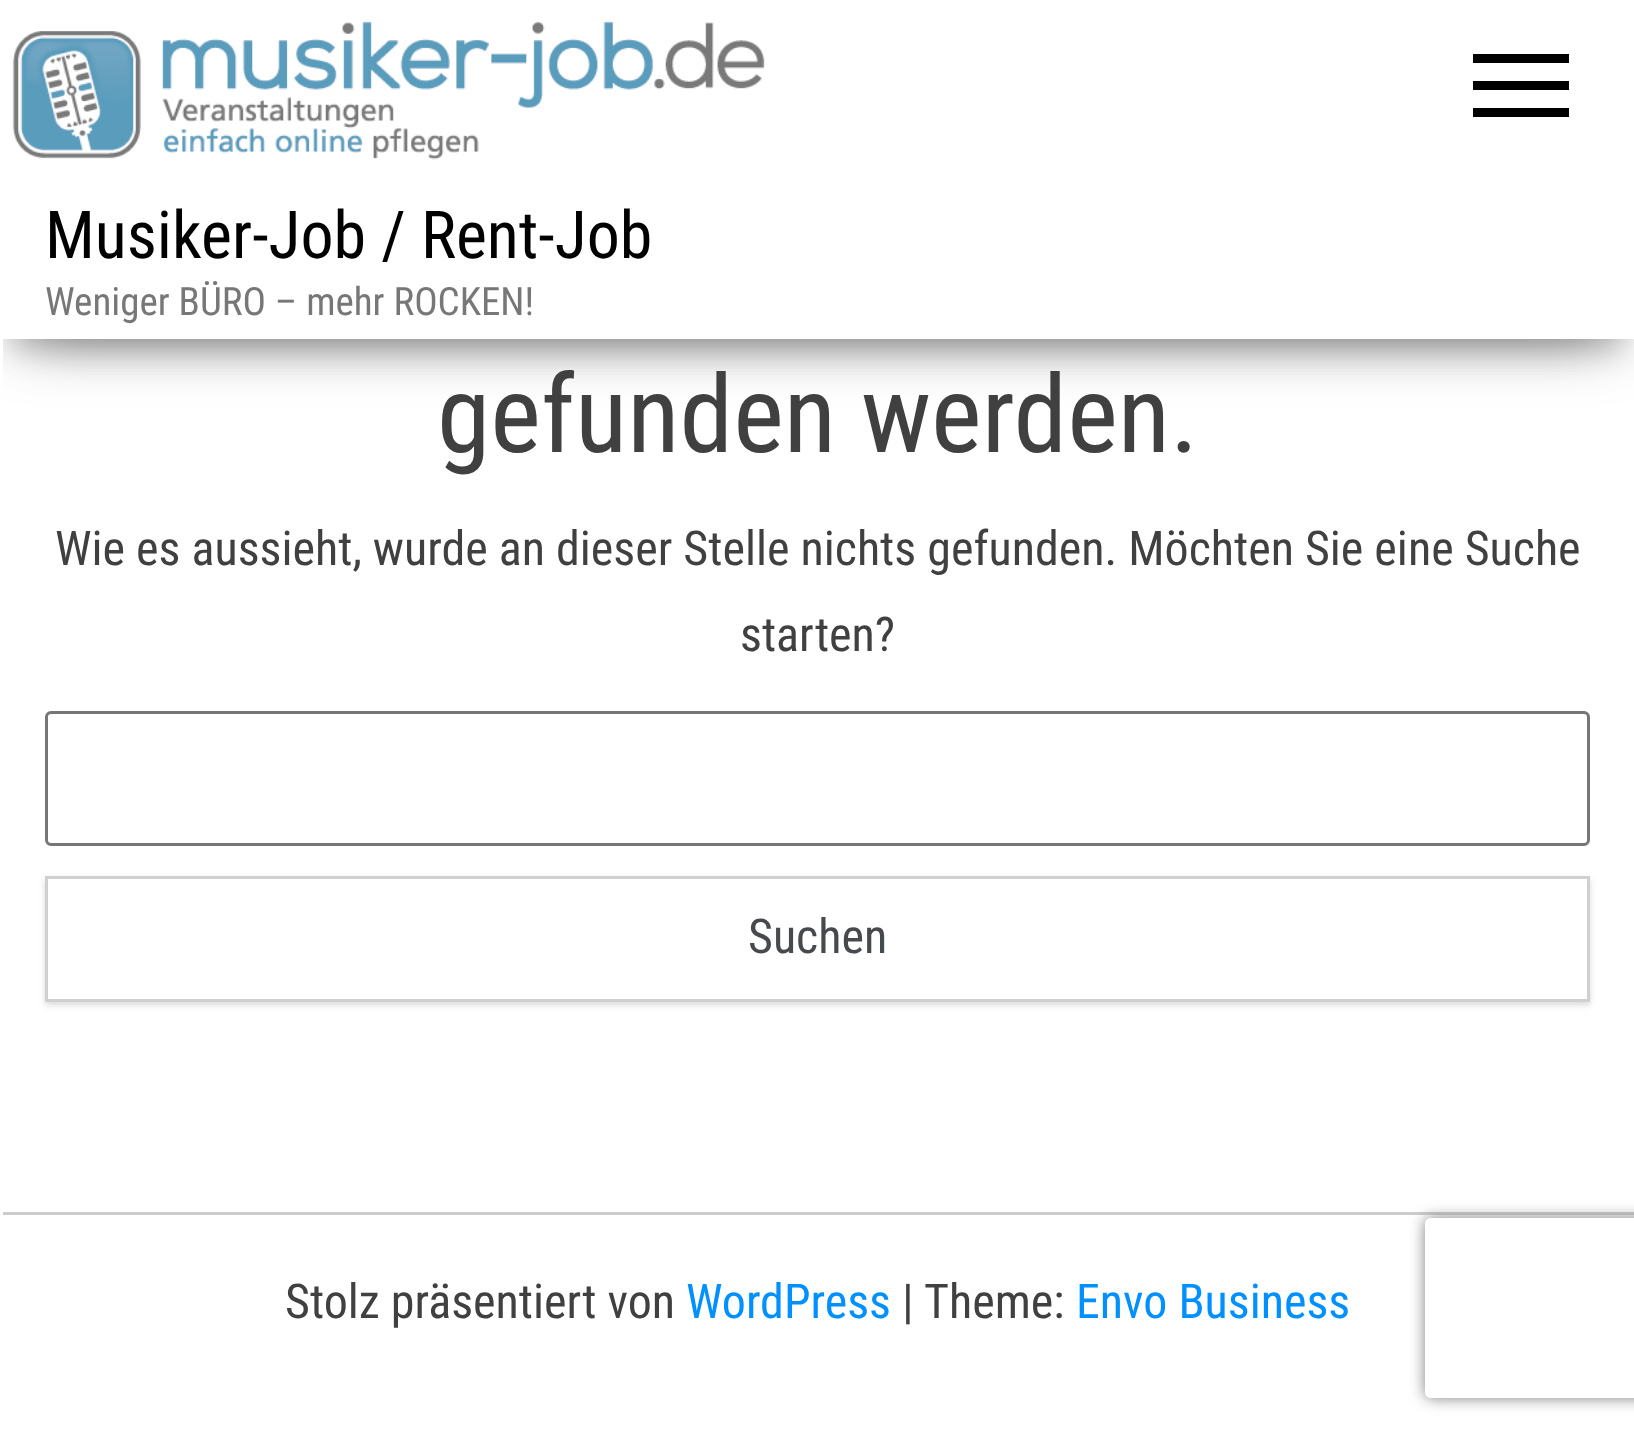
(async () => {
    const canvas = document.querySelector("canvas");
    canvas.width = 1634;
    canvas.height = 1439;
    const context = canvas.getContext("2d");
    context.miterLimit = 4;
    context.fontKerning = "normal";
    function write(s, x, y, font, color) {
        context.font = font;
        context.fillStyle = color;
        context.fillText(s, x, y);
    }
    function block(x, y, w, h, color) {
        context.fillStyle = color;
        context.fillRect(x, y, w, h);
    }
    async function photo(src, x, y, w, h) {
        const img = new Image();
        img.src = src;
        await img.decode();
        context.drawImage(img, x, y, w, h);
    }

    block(0, 0, 1634, 1439, "rgb(255, 255, 255)");
    context.fillStyle = "rgba(0, 0, 0, 0.2)";
    context.filter = "blur(15px)";
    context.beginPath();
    context.rect(15, 39, 1605, 309);
    context.fill();
    context.filter = "none";
    context.fillStyle = "rgba(0, 0, 0, 0.12)";
    context.filter = "blur(30px)";
    context.beginPath();
    context.rect(0, 9, 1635, 339);
    context.fill();
    context.filter = "none";
    context.fillStyle = "rgba(0, 0, 0, 0.42)";
    context.filter = "blur(30px)";
    context.beginPath();
    context.rect(36, 66, 1563, 267);
    context.fill();
    context.filter = "none";
    block(0, 0, 1634, 339, "rgb(255, 255, 255)");
    block(1473, 54, 96, 9, "rgb(0, 0, 0)");
    block(1473, 81, 96, 9, "rgb(0, 0, 0)");
    block(1473, 108, 96, 9, "rgb(0, 0, 0)");
    await photo("media/1.png", 12, 21, 753, 139);
    write("Musiker-Job / Rent-Job", 45, 258, "66px Roboto Condensed", "rgb(0, 0, 0)");
    write("Weniger BÜRO – mehr ROCKEN!", 45, 315, "39px Roboto Condensed", "rgb(119, 119, 119)");
    block(0, 339, 3, 46, "rgb(255, 255, 255)");
    block(0, 1212, 1634, 3, "rgb(204, 204, 204)");
    block(0, 1212, 3, 3, "rgb(255, 255, 255)");
    write("gefunden werden.", 437, 452, "108px Roboto Condensed", "rgb(64, 64, 64)");
    write("Wie es aussieht, wurde an dieser Stelle nichts gefunden. Möchten Sie eine Suche", 55, 565, "48px Roboto Condensed", "rgb(64, 64, 64)");
    write("starten?", 740, 651, "48px Roboto Condensed", "rgb(64, 64, 64)");
    context.beginPath();
    context.roundRect(46.5, 712.5, 1542, 132, 4.5);
    context.strokeStyle = "rgb(118, 118, 118)";
    context.lineWidth = 3;
    context.stroke();
    context.save();
    context.beginPath();
    context.moveTo(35, 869);
    context.lineTo(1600, 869);
    context.lineTo(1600, 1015);
    context.lineTo(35, 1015);
    context.closePath();
    context.moveTo(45, 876);
    context.lineTo(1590, 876);
    context.lineTo(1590, 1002);
    context.lineTo(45, 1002);
    context.closePath();
    context.clip("evenodd");
    context.fillStyle = "rgba(0, 0, 0, 0.15)";
    context.filter = "blur(3px)";
    context.beginPath();
    context.rect(45, 879, 1545, 126);
    context.fill();
    context.filter = "none";
    context.restore();
    context.strokeStyle = "rgb(208, 208, 208)";
    context.strokeRect(46.5, 877.5, 1542, 123);
    write("Suchen", 748, 953, "48px Roboto Condensed", "rgb(70, 74, 76)");
    write("Stolz präsentiert von", 285, 1318, "48px Roboto Condensed", "rgb(64, 64, 64)");
    write("WordPress", 686, 1318, "48px Roboto Condensed", "rgb(0, 144, 255)");
    write("|", 902, 1318, "48px Roboto Condensed", "rgb(64, 64, 64)");
    write("Theme:", 924, 1318, "48px Roboto Condensed", "rgb(64, 64, 64)");
    write("Envo Business", 1076, 1318, "48px Roboto Condensed", "rgb(0, 144, 255)");
    context.save();
    context.beginPath();
    context.moveTo(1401, 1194);
    context.lineTo(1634, 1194);
    context.lineTo(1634, 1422);
    context.lineTo(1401, 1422);
    context.closePath();
    context.moveTo(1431, 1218);
    context.lineTo(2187, 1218);
    context.bezierCurveTo(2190.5, 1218, 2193, 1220.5, 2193, 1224);
    context.lineTo(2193, 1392);
    context.bezierCurveTo(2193, 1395.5, 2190.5, 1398, 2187, 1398);
    context.lineTo(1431, 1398);
    context.bezierCurveTo(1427.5, 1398, 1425, 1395.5, 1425, 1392);
    context.lineTo(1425, 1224);
    context.bezierCurveTo(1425, 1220.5, 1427.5, 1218, 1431, 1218);
    context.closePath();
    context.clip("evenodd");
    context.fillStyle = "rgb(128, 128, 128)";
    context.filter = "blur(7.5px)";
    context.beginPath();
    context.roundRect(1425, 1218, 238, 180, 6);
    context.fill();
    context.filter = "none";
    context.restore();
})();
